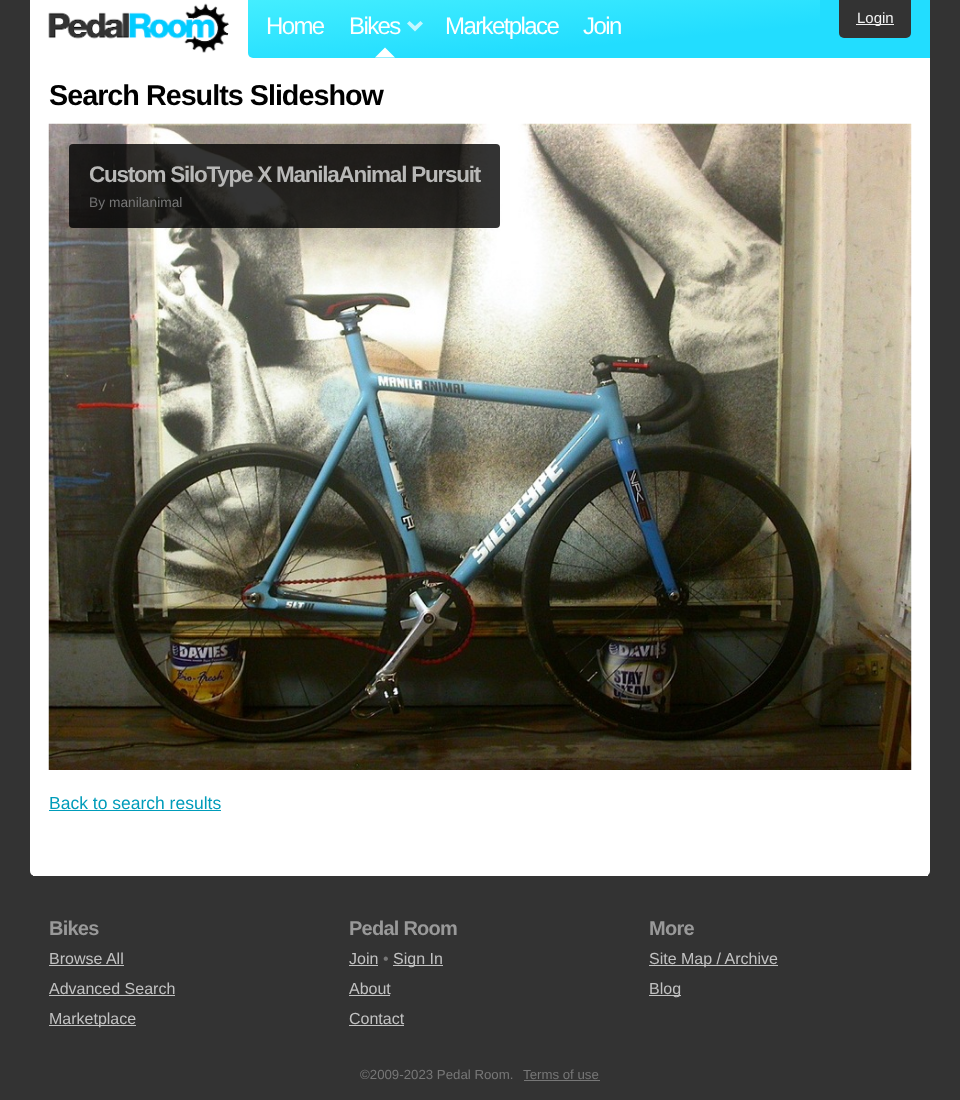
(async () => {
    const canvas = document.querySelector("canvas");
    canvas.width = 960;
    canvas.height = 1100;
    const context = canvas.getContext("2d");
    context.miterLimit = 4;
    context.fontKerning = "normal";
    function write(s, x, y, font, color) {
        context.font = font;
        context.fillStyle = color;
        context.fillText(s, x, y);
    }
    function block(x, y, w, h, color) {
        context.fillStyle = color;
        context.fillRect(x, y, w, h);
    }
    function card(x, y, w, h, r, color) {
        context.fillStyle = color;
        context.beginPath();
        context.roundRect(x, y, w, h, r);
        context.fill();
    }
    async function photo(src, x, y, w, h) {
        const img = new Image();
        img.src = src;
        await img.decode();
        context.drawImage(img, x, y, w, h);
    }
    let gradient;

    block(0, 0, 960, 1100, "rgb(51, 51, 51)");
    block(30, 0, 900, 74, "rgb(255, 255, 255)");
    await photo("media/1.png", 48, 3, 181, 50);
    gradient = context.createLinearGradient(528, -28, 539, 86);
    gradient.addColorStop(0, "rgb(68, 238, 255)");
    gradient.addColorStop(0.7, "rgb(34, 221, 255)");
    context.fillStyle = gradient;
    context.beginPath();
    context.roundRect(248, 0, 572, 58, [0, 0, 0, 5]);
    context.fill();
    context.letterSpacing = "-1.6px";
    write("Home", 266, 34, "24px Liberation Sans", "rgb(255, 255, 255)");
    write("Bikes", 349, 34, "24px Liberation Sans", "rgb(255, 255, 255)");
    context.fillStyle = "rgba(255, 255, 255, 0.7)";
    context.beginPath();
    context.moveTo(423, 23.5);
    context.lineTo(415, 31.5);
    context.lineTo(415, 26);
    context.lineTo(420.5, 21);
    context.closePath();
    context.moveTo(415, 31.5);
    context.lineTo(407, 23.5);
    context.lineTo(409.5, 21);
    context.lineTo(415, 26);
    context.closePath();
    context.fill();
    context.fillStyle = "rgb(255, 255, 255)";
    context.beginPath();
    context.moveTo(395, 57.5);
    context.lineTo(375, 57.5);
    context.lineTo(385, 47.5);
    context.closePath();
    context.fill();
    write("Marketplace", 445, 34, "24px Liberation Sans", "rgb(255, 255, 255)");
    write("Join", 583, 34, "24px Liberation Sans", "rgb(255, 255, 255)");
    block(820, 0, 110, 58, "rgb(34, 221, 255)");
    context.fillStyle = "rgb(51, 51, 51)";
    context.beginPath();
    context.roundRect(839, 0, 72, 38, [0, 0, 5, 5]);
    context.fill();
    block(856, 24, 38, 1, "rgb(242, 242, 242)");
    context.letterSpacing = "0px";
    write("Login", 857, 23, "15px Liberation Sans", "rgb(242, 242, 242)");
    context.fillStyle = "rgb(255, 255, 255)";
    context.beginPath();
    context.roundRect(30, 74, 900, 802, [0, 0, 5, 5]);
    context.fill();
    block(33, 875, 895, 1, "rgb(255, 255, 255)");
    context.letterSpacing = "-1px";
    write("Search Results Slideshow", 49, 105, "bold 28.75px Liberation Sans", "rgb(0, 0, 0)");
    await photo("media/2.png", 48, 123, 864, 647);
    card(69, 144, 431, 84, 4, "rgba(0, 0, 0, 0.8)");
    context.letterSpacing = "-1.25px";
    write("Custom SiloType X ManilaAnimal Pursuit", 89, 182, "bold 22.5px Liberation Sans", "rgb(184, 184, 183)");
    context.letterSpacing = "0px";
    write("By", 89, 207, "13.75px Liberation Sans", "rgb(113, 113, 113)");
    write("manilanimal", 109, 207, "13.75px Liberation Sans", "rgb(119, 119, 119)");
    write("Back to search results", 49, 809, "17.5px Liberation Sans", "rgb(0, 156, 186)");
    block(49, 810, 172, 1, "rgb(0, 156, 186)");
    context.letterSpacing = "-0.75px";
    write("Bikes", 49, 935, "bold 20px Liberation Sans", "rgb(153, 153, 153)");
    context.letterSpacing = "0px";
    write("Browse All", 49, 964, "16px Liberation Sans", "rgb(194, 194, 194)");
    block(49, 965, 75, 1, "rgb(194, 194, 194)");
    write("Advanced Search", 49, 994, "16px Liberation Sans", "rgb(194, 194, 194)");
    block(49, 995, 126, 1, "rgb(194, 194, 194)");
    block(49, 1025, 87, 1, "rgb(194, 194, 194)");
    write("Marketplace", 49, 1024, "16px Liberation Sans", "rgb(194, 194, 194)");
    context.letterSpacing = "-0.75px";
    write("Pedal Room", 349, 935, "bold 20px Liberation Sans", "rgb(153, 153, 153)");
    context.letterSpacing = "0px";
    write("Join", 349, 964, "16px Liberation Sans", "rgb(194, 194, 194)");
    block(349, 965, 29, 1, "rgb(194, 194, 194)");
    write("•", 383, 964, "16px Liberation Sans", "rgb(119, 119, 119)");
    block(393, 965, 50, 1, "rgb(194, 194, 194)");
    write("Sign In", 393, 964, "16px Liberation Sans", "rgb(194, 194, 194)");
    write("About", 349, 994, "16px Liberation Sans", "rgb(194, 194, 194)");
    block(349, 995, 41, 1, "rgb(194, 194, 194)");
    write("Contact", 349, 1024, "16px Liberation Sans", "rgb(194, 194, 194)");
    block(349, 1025, 55, 1, "rgb(194, 194, 194)");
    context.letterSpacing = "-0.75px";
    write("More", 649, 935, "bold 20px Liberation Sans", "rgb(153, 153, 153)");
    block(649, 965, 129, 1, "rgb(194, 194, 194)");
    context.letterSpacing = "0px";
    write("Site Map / Archive", 649, 964, "16px Liberation Sans", "rgb(194, 194, 194)");
    block(649, 995, 32, 1, "rgb(194, 194, 194)");
    write("Blog", 649, 994, "16px Liberation Sans", "rgb(194, 194, 194)");
    write("©2009-2023 Pedal Room.", 360, 1079, "13.25px Liberation Sans", "rgb(119, 119, 119)");
    write("Terms of use", 523, 1079, "13.25px Liberation Sans", "rgb(119, 119, 119)");
    block(524, 1080, 76, 1, "rgb(119, 119, 119)");
})();
